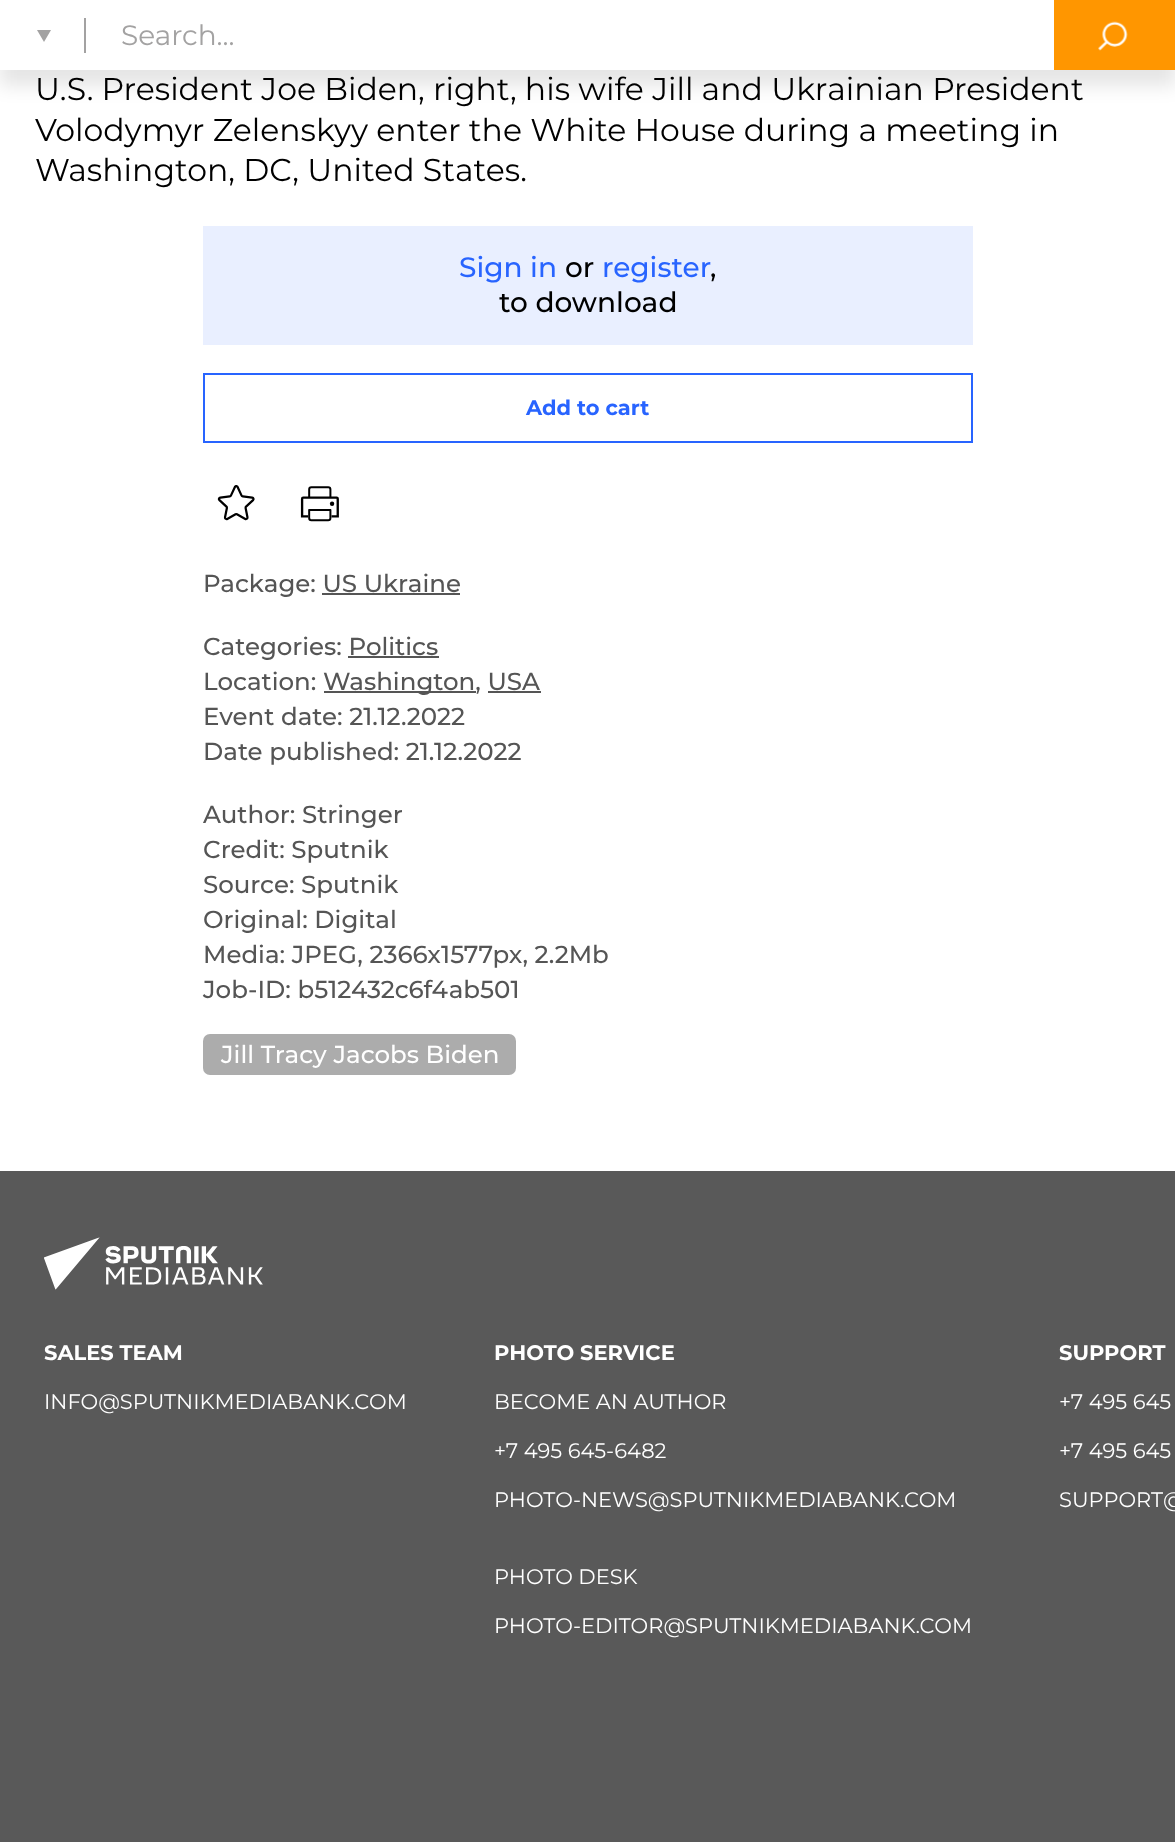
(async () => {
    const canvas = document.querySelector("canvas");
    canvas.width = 1175;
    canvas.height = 1842;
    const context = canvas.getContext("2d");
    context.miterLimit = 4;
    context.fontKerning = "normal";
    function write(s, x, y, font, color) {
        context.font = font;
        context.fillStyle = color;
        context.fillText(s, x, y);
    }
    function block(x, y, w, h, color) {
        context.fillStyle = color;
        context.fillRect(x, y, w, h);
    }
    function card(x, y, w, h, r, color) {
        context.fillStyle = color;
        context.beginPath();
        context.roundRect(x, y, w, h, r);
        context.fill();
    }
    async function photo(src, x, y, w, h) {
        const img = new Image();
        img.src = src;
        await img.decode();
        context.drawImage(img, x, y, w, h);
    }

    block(0, 0, 1175, 1842, "rgb(255, 255, 255)");
    context.fillStyle = "rgba(0, 0, 0, 0.1)";
    context.filter = "blur(9px)";
    context.beginPath();
    context.rect(0, -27, 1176, 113);
    context.fill();
    context.filter = "none";
    block(0, 0, 1054, 70, "rgb(255, 255, 255)");
    context.fillStyle = "rgb(163, 162, 162)";
    context.beginPath();
    context.moveTo(37, 30);
    context.lineTo(51, 30);
    context.lineTo(44, 42);
    context.closePath();
    context.fill();
    block(84, 18, 2, 35, "rgb(163, 162, 162)");
    write("Search...", 121, 45, "28px Montserrat", "rgb(163, 162, 162)");
    block(1054, 0, 121, 70, "rgb(255, 150, 0)");
    await photo("media/1.png", 1098, 21, 30, 30);
    write("U.S. President Joe Biden, right, his wife Jill and Ukrainian President", 35, 100, "31.5px Montserrat", "rgb(0, 0, 0)");
    write("Volodymyr Zelenskyy enter the White House during a meeting in", 35, 141, "31.5px Montserrat", "rgb(0, 0, 0)");
    write("Washington, DC, United States.", 35, 181, "31.5px Montserrat", "rgb(0, 0, 0)");
    block(203, 226, 770, 119, "rgb(233, 239, 255)");
    write("Sign in", 459, 277, "500 28px Montserrat", "rgb(40, 100, 255)");
    write("or", 565, 277, "500 28px Montserrat", "rgb(0, 0, 0)");
    write("register", 602, 277, "500 28px Montserrat", "rgb(40, 100, 255)");
    write(",", 710, 277, "500 28px Montserrat", "rgb(0, 0, 0)");
    write("to download", 499, 312, "500 28px Montserrat", "rgb(0, 0, 0)");
    context.strokeStyle = "rgb(40, 100, 255)";
    context.lineWidth = 2;
    context.strokeRect(204, 374, 768, 68);
    write("Add to cart", 526, 415, "bold 21px Montserrat", "rgb(40, 100, 255)");
    await photo("media/2.png", 217, 485, 38, 36);
    await photo("media/3.png", 300, 486, 39, 36);
    write("Package: US Ukraine", 203, 592, "500 24.5px Montserrat", "rgb(85, 85, 85)");
    block(322, 593, 138, 2, "rgb(85, 85, 85)");
    write("Categories: Politics", 203, 655, "500 24.5px Montserrat", "rgb(85, 85, 85)");
    block(348, 656, 91, 2, "rgb(85, 85, 85)");
    write("Location:", 203, 690, "500 24.5px Montserrat", "rgb(85, 85, 85)");
    block(324, 691, 152, 2, "rgb(85, 85, 85)");
    write("Washington, USA", 323, 690, "500 24.5px Montserrat", "rgb(85, 85, 85)");
    block(488, 691, 53, 2, "rgb(85, 85, 85)");
    write("Event date: 21.12.2022", 203, 725, "500 24.5px Montserrat", "rgb(85, 85, 85)");
    write("Date published: 21.12.2022", 203, 760, "500 24.5px Montserrat", "rgb(85, 85, 85)");
    write("Author: Stringer", 203, 823, "500 24.5px Montserrat", "rgb(85, 85, 85)");
    write("Credit: Sputnik", 203, 858, "500 24.5px Montserrat", "rgb(85, 85, 85)");
    write("Source: Sputnik", 203, 893, "500 24.5px Montserrat", "rgb(85, 85, 85)");
    write("Original: Digital", 203, 928, "500 24.5px Montserrat", "rgb(85, 85, 85)");
    write("Media: JPEG, 2366x1577px, 2.2Mb", 203, 963, "500 24.5px Montserrat", "rgb(85, 85, 85)");
    write("Job-ID: b512432c6f4ab501", 203, 998, "500 24.5px Montserrat", "rgb(85, 85, 85)");
    card(203, 1034, 313, 41, 7, "rgb(172, 172, 172)");
    write("Jill Tracy Jacobs Biden", 221, 1063, "500 24.5px Montserrat", "rgb(255, 255, 255)");
    block(0, 1171, 1175, 671, "rgb(89, 89, 89)");
    await photo("media/4.png", 44, 1237, 219, 53);
    write("SALES TEAM", 44, 1360, "bold 21px Montserrat", "rgb(255, 255, 255)");
    write("INFO@SPUTNIKMEDIABANK.COM", 44, 1409, "21px Montserrat", "rgb(255, 255, 255)");
    write("PHOTO SERVICE", 494, 1360, "bold 21px Montserrat", "rgb(255, 255, 255)");
    write("BECOME AN AUTHOR", 494, 1409, "21px Montserrat", "rgb(255, 255, 255)");
    write("+7 495 645-6482", 494, 1458, "21px Montserrat", "rgb(255, 255, 255)");
    write("PHOTO-NEWS@SPUTNIKMEDIABANK.COM", 494, 1507, "21px Montserrat", "rgb(255, 255, 255)");
    write("PHOTO DESK", 494, 1584, "21px Montserrat", "rgb(255, 255, 255)");
    write("PHOTO-EDITOR@SPUTNIKMEDIABANK.COM", 494, 1633, "21px Montserrat", "rgb(255, 255, 255)");
    write("SUPPORT", 1059, 1360, "bold 21px Montserrat", "rgb(255, 255, 255)");
    write("+7 495 645", 1059, 1409, "21px Montserrat", "rgb(255, 255, 255)");
    write("+7 495 645", 1059, 1458, "21px Montserrat", "rgb(255, 255, 255)");
    write("SUPPORT@", 1059, 1507, "21px Montserrat", "rgb(255, 255, 255)");
})();
